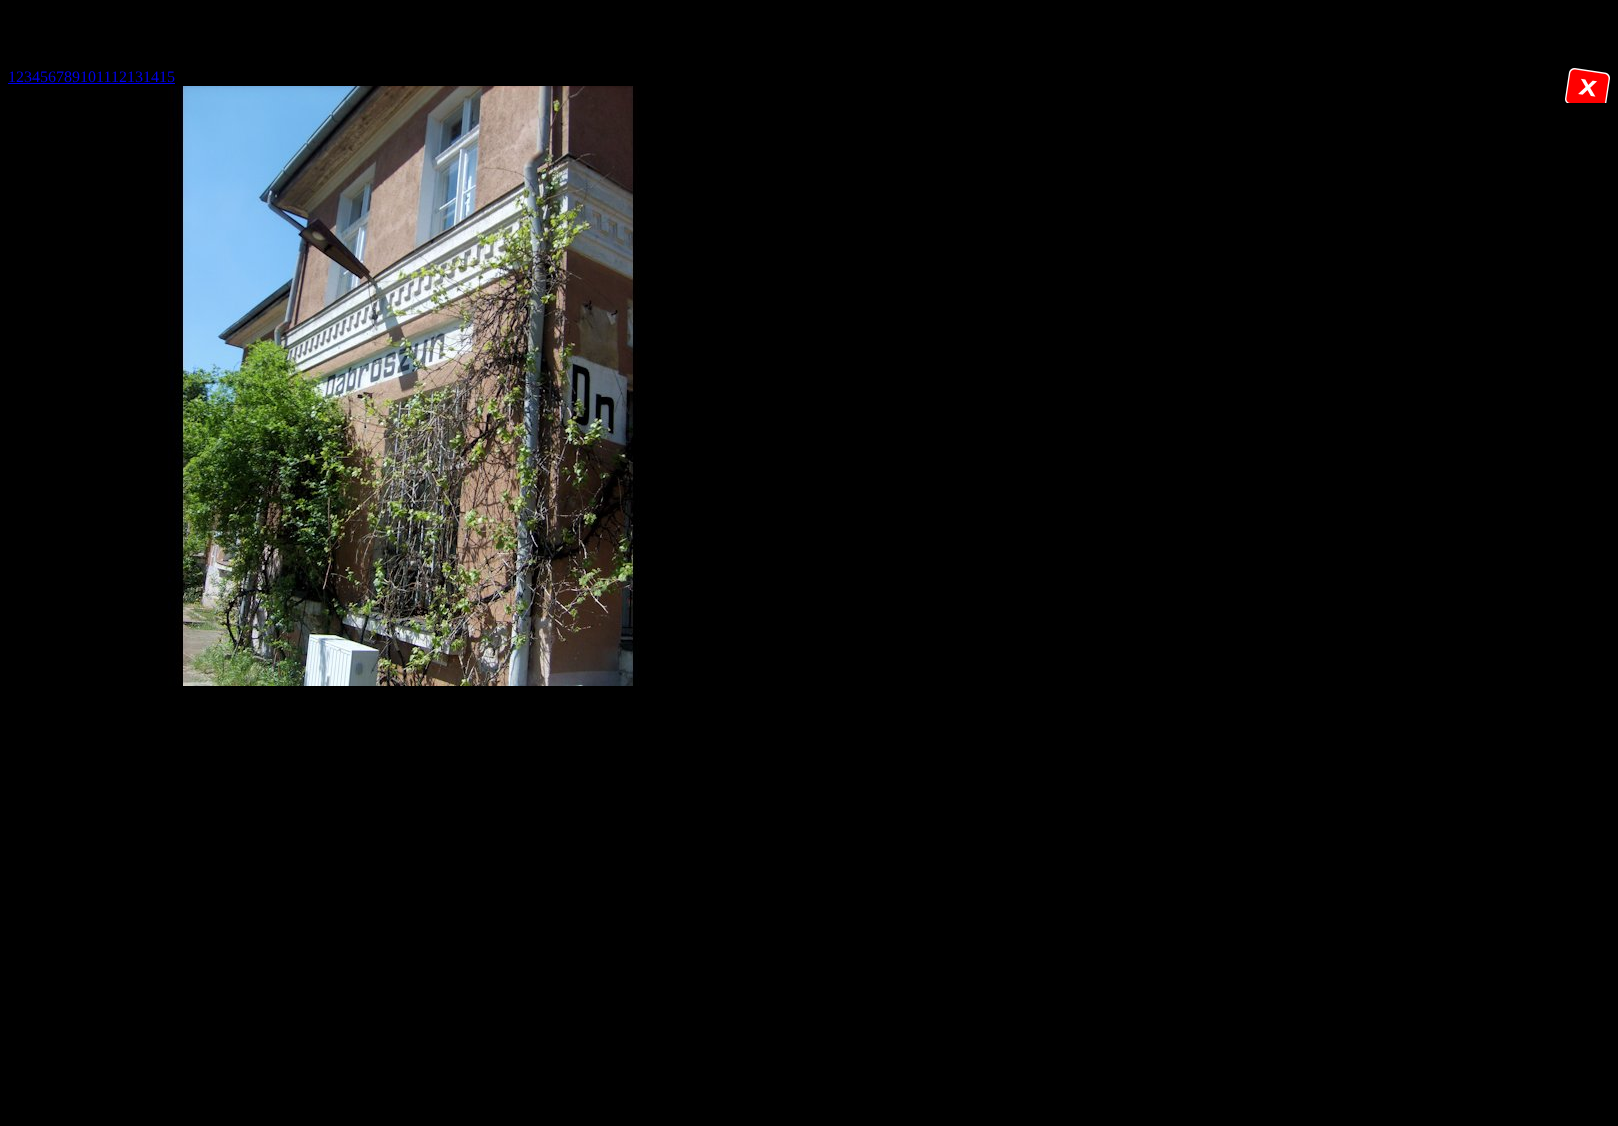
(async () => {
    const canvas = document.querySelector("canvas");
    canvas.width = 1618;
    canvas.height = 1126;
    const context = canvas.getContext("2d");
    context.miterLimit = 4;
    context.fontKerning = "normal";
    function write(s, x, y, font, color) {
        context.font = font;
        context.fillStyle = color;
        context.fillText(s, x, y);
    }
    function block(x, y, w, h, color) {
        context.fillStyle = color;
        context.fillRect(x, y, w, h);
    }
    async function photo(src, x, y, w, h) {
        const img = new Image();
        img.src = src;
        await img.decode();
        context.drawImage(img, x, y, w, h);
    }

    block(0, 0, 1618, 1126, "rgb(0, 0, 0)");
    write("1234567891011", 8, 82, "16px Liberation Serif", "rgb(0, 0, 238)");
    block(8, 83, 167, 1, "rgb(0, 0, 238)");
    write("12131415", 111, 82, "16px Liberation Serif", "rgb(0, 0, 238)");
    await photo("media/1.png", 1565, 68, 45, 35);
    await photo("media/2.png", 168, 86, 472, 600);
})();
